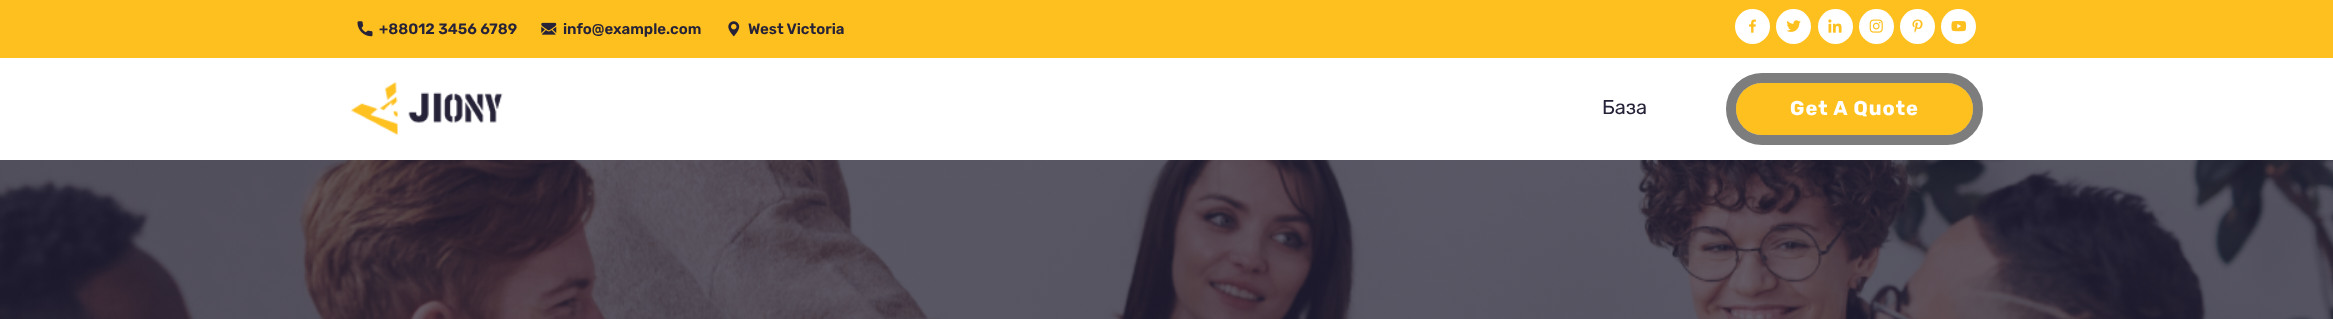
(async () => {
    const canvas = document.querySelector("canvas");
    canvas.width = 2333;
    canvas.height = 319;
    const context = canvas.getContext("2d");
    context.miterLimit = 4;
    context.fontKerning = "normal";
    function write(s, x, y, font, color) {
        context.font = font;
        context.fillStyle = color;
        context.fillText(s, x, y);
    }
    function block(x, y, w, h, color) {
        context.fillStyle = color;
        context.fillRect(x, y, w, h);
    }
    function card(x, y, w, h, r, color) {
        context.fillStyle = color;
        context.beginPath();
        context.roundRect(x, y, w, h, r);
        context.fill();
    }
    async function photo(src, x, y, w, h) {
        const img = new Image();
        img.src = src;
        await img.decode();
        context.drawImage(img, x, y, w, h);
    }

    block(0, 0, 2333, 319, "rgb(255, 255, 255)");
    block(0, 0, 2333, 58, "rgb(254, 192, 31)");
    await photo("media/1.png", 357, 21, 16, 16);
    write("+88012 3456 6789", 379, 34, "600 15px Rubik", "rgb(38, 35, 57)");
    await photo("media/2.png", 541, 22, 16, 13);
    write("info@example.com", 563, 34, "600 15px Rubik", "rgb(38, 35, 57)");
    await photo("media/3.png", 728, 21, 12, 16);
    write("West Victoria", 748, 34, "600 15px Rubik", "rgb(38, 35, 57)");
    context.fillStyle = "rgb(255, 255, 255)";
    context.beginPath();
    context.arc(1752.5, 26.5, 17.5, 0, Math.PI * 2);
    context.fill();
    await photo("media/4.png", 1749, 19, 7, 14);
    context.beginPath();
    context.arc(1793.5, 26.5, 17.5, 0, Math.PI * 2);
    context.fill();
    await photo("media/5.png", 1786, 20, 15, 12);
    context.beginPath();
    context.arc(1835.5, 26.5, 17.5, 0, Math.PI * 2);
    context.fill();
    await photo("media/6.png", 1828, 19, 14, 14);
    context.beginPath();
    context.arc(1876.5, 26.5, 17.5, 0, Math.PI * 2);
    context.fill();
    await photo("media/7.png", 1869, 19, 14, 14);
    context.beginPath();
    context.arc(1917.5, 26.5, 17.5, 0, Math.PI * 2);
    context.fill();
    await photo("media/8.png", 1912, 19, 11, 14);
    context.beginPath();
    context.arc(1958.5, 26.5, 17.5, 0, Math.PI * 2);
    context.fill();
    await photo("media/9.png", 1951, 21, 16, 11);
    await photo("media/10.png", 351, 82, 152, 53);
    write("База", 1602, 114, "20px Rubik", "rgb(38, 35, 57)");
    card(1726, 73, 257, 72, 36, "rgb(179, 179, 179)");
    context.beginPath();
    context.roundRect(1731, 78, 247, 62, 31);
    context.strokeStyle = "rgba(0, 0, 0, 0.3)";
    context.lineWidth = 10;
    context.stroke();
    card(1736, 83, 237, 52, 26, "rgb(254, 192, 31)");
    context.letterSpacing = "1px";
    write("Get A Quote", 1790, 115, "300 20px Rubik", "rgb(255, 255, 255)");
    await photo("media/11.png", 0, 160, 2333, 159);
})();
